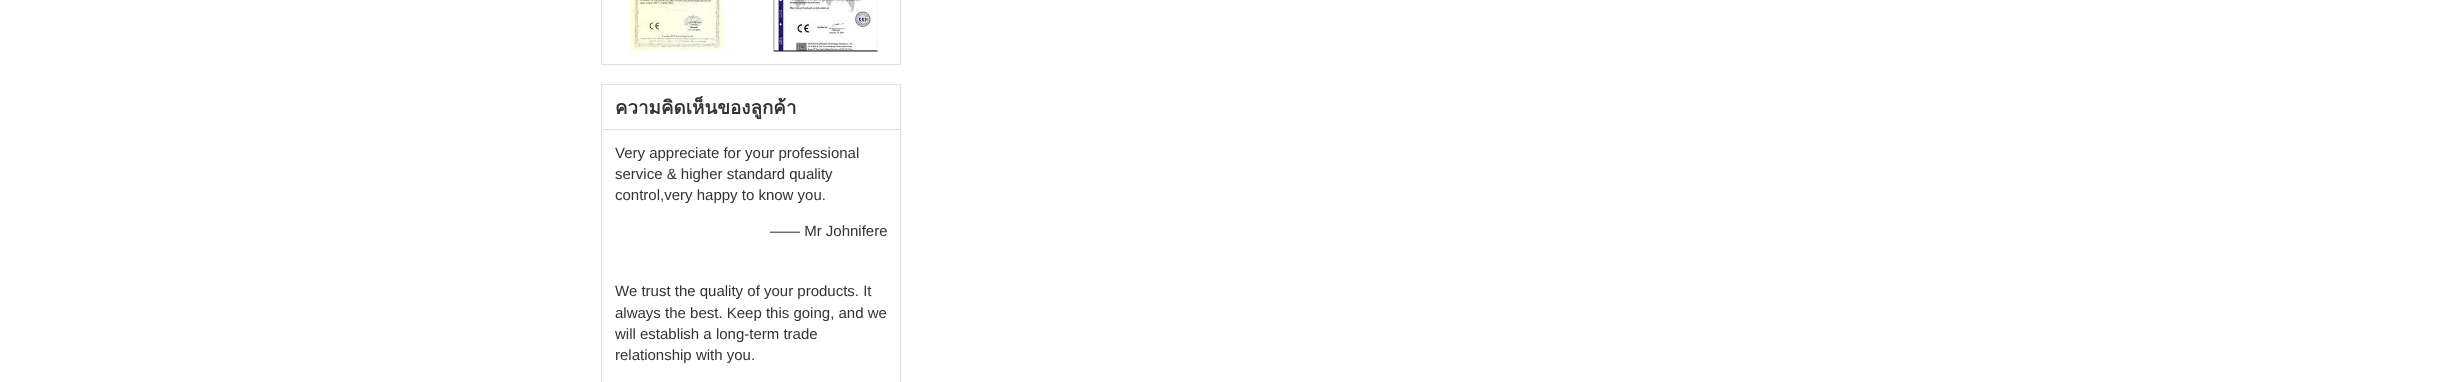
(async () => {
    const canvas = document.querySelector("canvas");
    canvas.width = 2452;
    canvas.height = 382;
    const context = canvas.getContext("2d");
    context.miterLimit = 4;
    context.fontKerning = "normal";
    function write(s, x, y, font, color) {
        context.font = font;
        context.fillStyle = color;
        context.fillText(s, x, y);
    }
    function block(x, y, w, h, color) {
        context.fillStyle = color;
        context.fillRect(x, y, w, h);
    }
    async function photo(src, x, y, w, h) {
        const img = new Image();
        img.src = src;
        await img.decode();
        context.drawImage(img, x, y, w, h);
    }

    block(0, 0, 2452, 382, "rgb(255, 255, 255)");
    context.strokeStyle = "rgb(222, 222, 222)";
    context.strokeRect(601.5, -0.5, 299, 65);
    await photo("media/1.png", 630, 0, 94, 52);
    await photo("media/2.png", 773, 0, 105, 52);
    context.strokeRect(601.5, 84.5, 299, 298);
    block(603, 129, 297, 1, "rgb(222, 222, 222)");
    write("ความคิดเห็นของลูกค้า", 615, 114, "bold 18.75px Loma", "rgb(51, 51, 51)");
    write("Very appreciate for your professional", 615, 158, "15px Liberation Sans", "rgb(51, 51, 51)");
    write("service & higher standard quality", 615, 179, "15px Liberation Sans", "rgb(51, 51, 51)");
    write("control,very happy to know you.", 615, 200, "15px Liberation Sans", "rgb(51, 51, 51)");
    write("—— Mr Johnifere", 770, 236, "15px Liberation Sans", "rgb(51, 51, 51)");
    write("We trust the quality of your products. It", 615, 296, "15px Liberation Sans", "rgb(51, 51, 51)");
    write("always the best. Keep this going, and we", 615, 318, "15px Liberation Sans", "rgb(51, 51, 51)");
    write("will establish a long-term trade", 615, 339, "15px Liberation Sans", "rgb(51, 51, 51)");
    write("relationship with you.", 615, 360, "15px Liberation Sans", "rgb(51, 51, 51)");
})();
